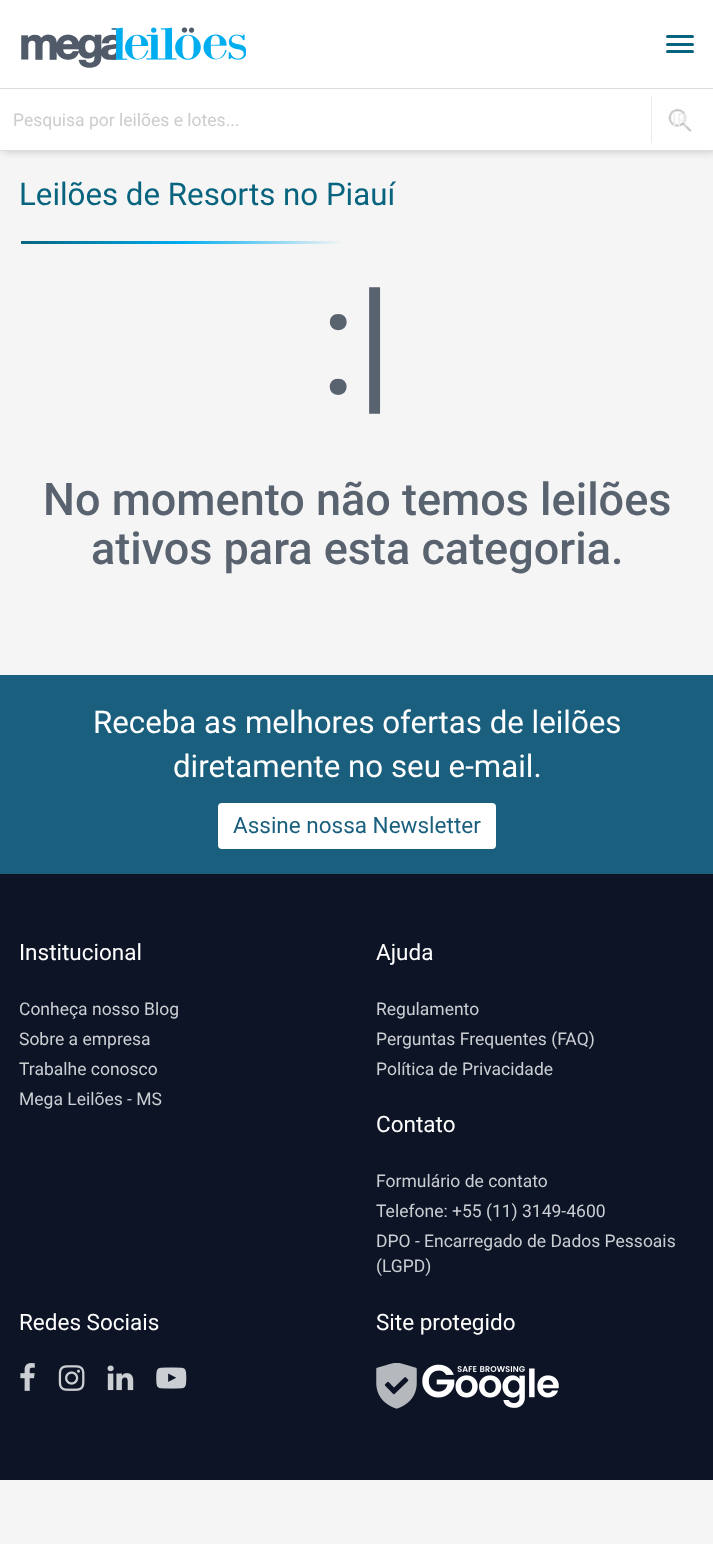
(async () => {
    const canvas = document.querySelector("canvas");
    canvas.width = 713;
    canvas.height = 1544;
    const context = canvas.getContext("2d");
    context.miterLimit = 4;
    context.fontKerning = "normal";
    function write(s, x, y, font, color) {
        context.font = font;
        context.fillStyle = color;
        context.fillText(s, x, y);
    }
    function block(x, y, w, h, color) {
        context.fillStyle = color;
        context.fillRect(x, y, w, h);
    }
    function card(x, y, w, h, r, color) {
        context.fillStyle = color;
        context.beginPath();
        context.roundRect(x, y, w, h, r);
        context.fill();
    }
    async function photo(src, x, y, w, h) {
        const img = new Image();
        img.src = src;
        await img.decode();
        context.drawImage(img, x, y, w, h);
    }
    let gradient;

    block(0, 0, 713, 1544, "rgb(245, 245, 245)");
    context.fillStyle = "rgba(0, 0, 0, 0.2)";
    context.filter = "blur(5px)";
    context.beginPath();
    context.rect(3, 0, 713, 151);
    context.fill();
    context.filter = "none";
    block(0, 0, 713, 150, "rgb(255, 255, 255)");
    block(0, 150, 713, 1, "rgb(221, 221, 221)");
    await photo("media/1.png", 21, 27, 225, 41);
    card(666, 35, 28, 3, 1.5, "rgb(8, 100, 126)");
    card(666, 43, 28, 3, 1.5, "rgb(8, 100, 126)");
    card(666, 50, 28, 3, 1.5, "rgb(8, 100, 126)");
    block(0, 88, 713, 1, "rgb(221, 221, 221)");
    write("Pesquisa por leilões e lotes...", 13, 126, "17.5px Roboto", "rgb(204, 204, 204)");
    await photo("media/2.png", 668, 108, 24, 24);
    block(651, 96, 1, 47, "rgb(235, 235, 235)");
    write("IR", 672, 126, "17.5px Roboto", "rgb(238, 238, 238)");
    write("Leilões de Resorts no Piauí", 19, 205, "31.25px Roboto", "rgb(8, 100, 126)");
    gradient = context.createLinearGradient(21, 243, 343, 243);
    gradient.addColorStop(0, "rgb(8, 100, 126)");
    gradient.addColorStop(0.5, "rgb(0, 173, 239)");
    gradient.addColorStop(1, "rgb(245, 245, 245)");
    context.fillStyle = gradient;
    context.fillRect(21, 241, 322, 3);
    write(":|", 320, 394, "150px Roboto", "rgb(89, 98, 111)");
    write("No momento não temos leilões", 43, 515, "500 45px Roboto", "rgb(89, 98, 111)");
    write("ativos para esta categoria.", 91, 564, "500 45px Roboto", "rgb(89, 98, 111)");
    block(0, 675, 713, 199, "rgb(26, 95, 126)");
    write("Receba as melhores ofertas de leilões", 93, 733, "31.25px Roboto", "rgb(255, 255, 255)");
    write("diretamente no seu e-mail.", 173, 777, "31.25px Roboto", "rgb(255, 255, 255)");
    card(218, 803, 278, 46, 4, "rgb(255, 255, 255)");
    write("Assine nossa Newsletter", 233, 833, "22.5px Roboto", "rgb(26, 95, 126)");
    block(0, 874, 713, 606, "rgb(13, 20, 38)");
    write("Institucional", 19, 960, "22.5px Roboto", "rgb(255, 255, 255)");
    write("Conheça nosso Blog", 19, 1015, "17.5px Roboto", "rgb(203, 206, 210)");
    write("Sobre a empresa", 19, 1045, "17.5px Roboto", "rgb(203, 206, 210)");
    write("Trabalhe conosco", 19, 1075, "17.5px Roboto", "rgb(203, 206, 210)");
    write("Mega Leilões - MS", 19, 1105, "17.5px Roboto", "rgb(203, 206, 210)");
    write("Ajuda", 376, 960, "22.5px Roboto", "rgb(255, 255, 255)");
    write("Regulamento", 376, 1015, "17.5px Roboto", "rgb(203, 206, 210)");
    write("Perguntas Frequentes (FAQ)", 376, 1045, "17.5px Roboto", "rgb(203, 206, 210)");
    write("Política de Privacidade", 376, 1075, "17.5px Roboto", "rgb(203, 206, 210)");
    write("Contato", 376, 1132, "22.5px Roboto", "rgb(255, 255, 255)");
    write("Formulário de contato", 376, 1187, "17.5px Roboto", "rgb(203, 206, 210)");
    write("Telefone: +55 (11) 3149-4600", 376, 1217, "17.5px Roboto", "rgb(203, 206, 210)");
    write("DPO - Encarregado de Dados Pessoais", 376, 1247, "17.5px Roboto", "rgb(203, 206, 210)");
    write("(LGPD)", 376, 1272, "17.5px Roboto", "rgb(203, 206, 210)");
    write("Redes Sociais", 19, 1330, "22.5px Roboto", "rgb(255, 255, 255)");
    await photo("media/3.png", 20, 1363, 15, 28);
    await photo("media/4.png", 58, 1365, 27, 26);
    await photo("media/5.png", 107, 1365, 27, 26);
    await photo("media/6.png", 156, 1367, 31, 22);
    write("Site protegido", 376, 1330, "22.5px Roboto", "rgb(255, 255, 255)");
    await photo("media/7.png", 376, 1363, 183, 46);
})();
